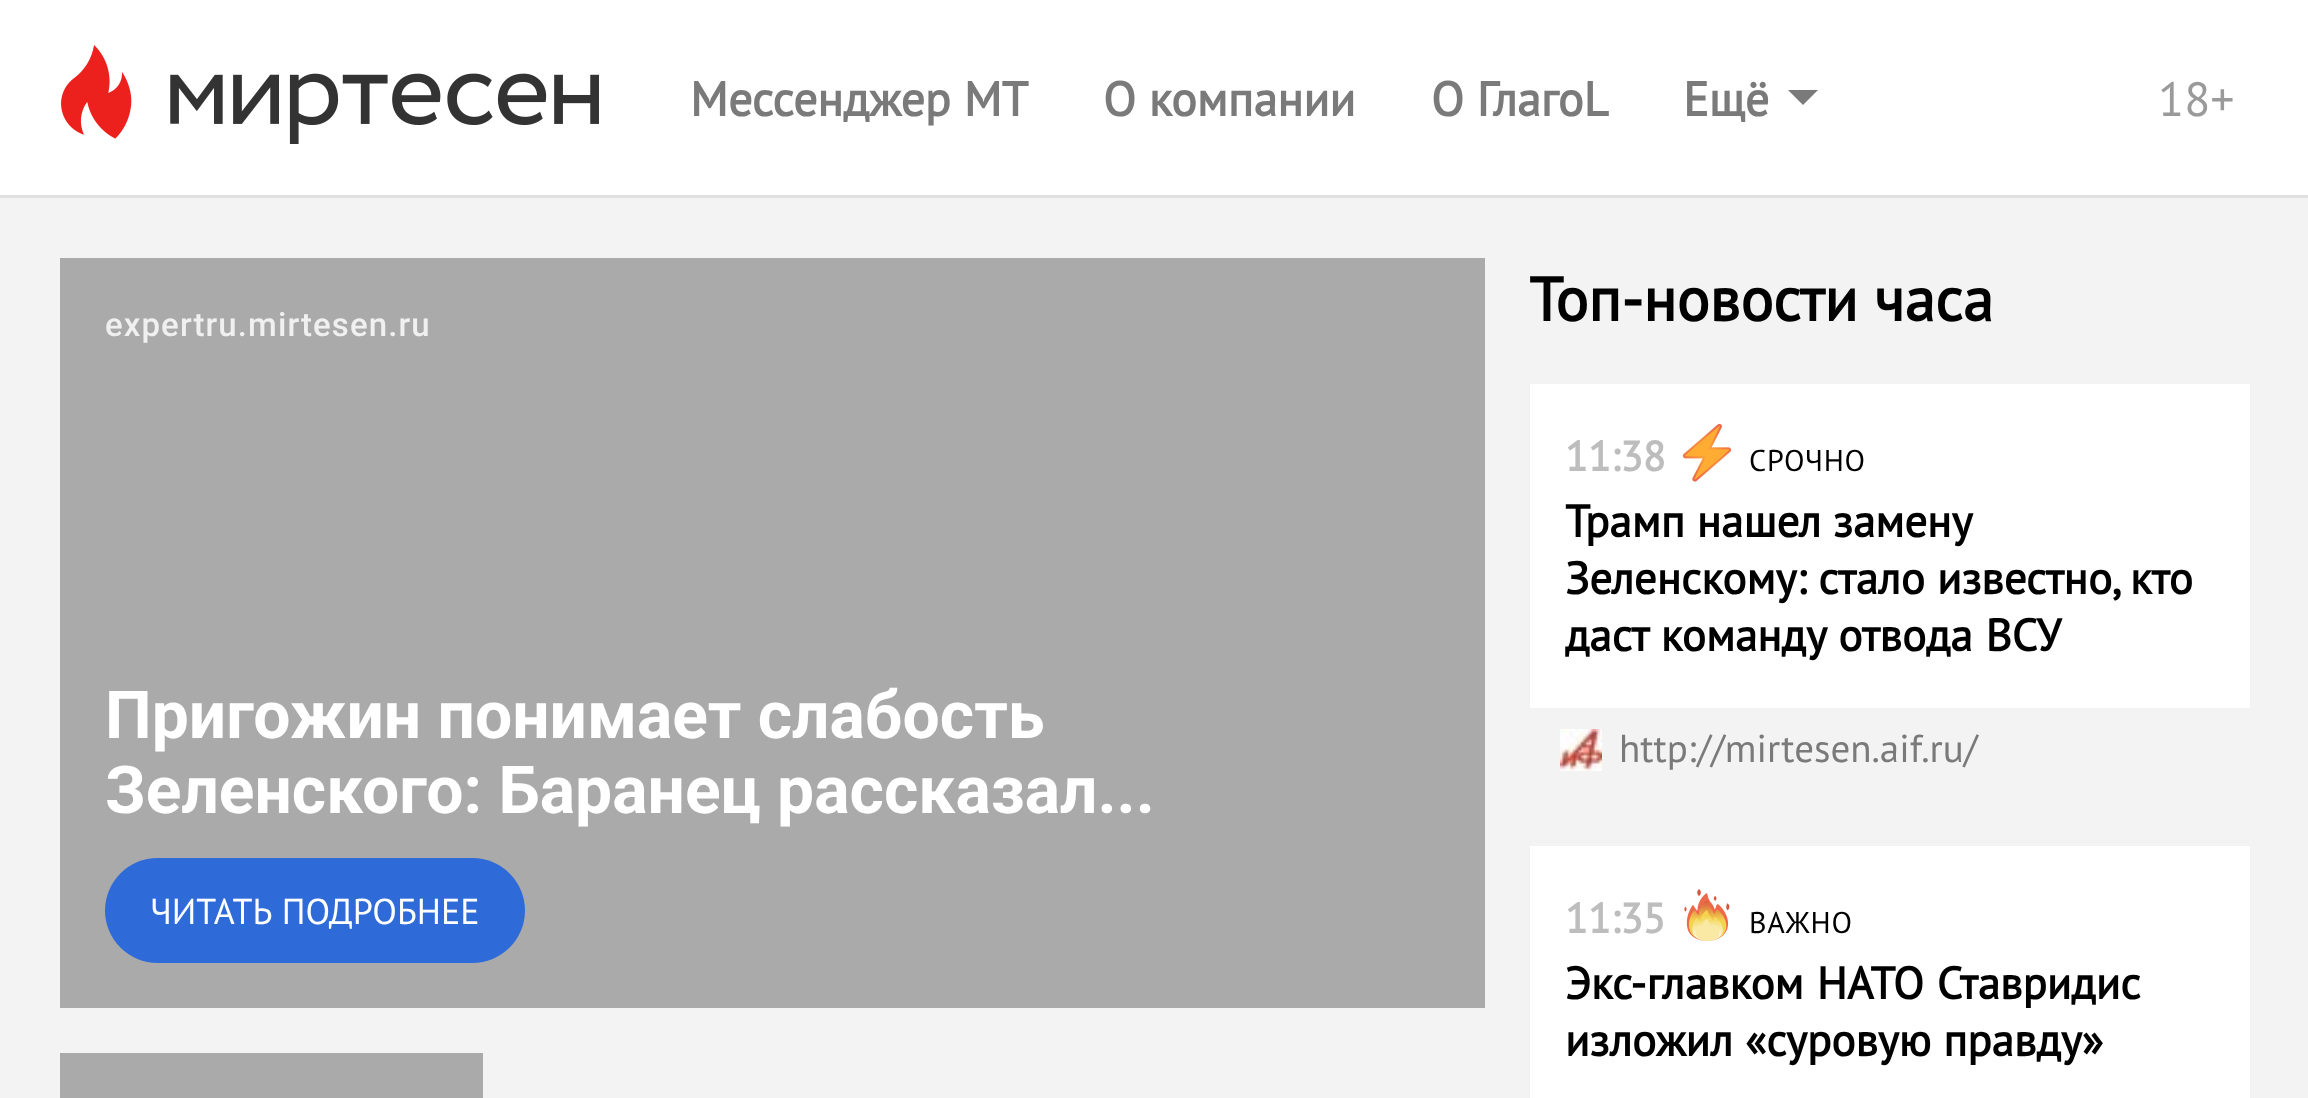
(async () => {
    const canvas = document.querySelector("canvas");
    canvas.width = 2308;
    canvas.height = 1098;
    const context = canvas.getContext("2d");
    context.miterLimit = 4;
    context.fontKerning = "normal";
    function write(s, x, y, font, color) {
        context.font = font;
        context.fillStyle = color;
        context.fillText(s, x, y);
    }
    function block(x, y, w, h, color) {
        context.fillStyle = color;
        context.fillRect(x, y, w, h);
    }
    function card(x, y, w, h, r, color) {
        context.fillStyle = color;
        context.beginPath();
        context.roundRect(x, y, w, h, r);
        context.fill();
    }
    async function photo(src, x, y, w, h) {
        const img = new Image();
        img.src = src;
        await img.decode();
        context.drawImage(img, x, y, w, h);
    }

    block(0, 0, 2308, 1098, "rgb(243, 243, 243)");
    block(0, 0, 2308, 195, "rgb(255, 255, 255)");
    block(0, 195, 2308, 3, "rgb(225, 225, 225)");
    await photo("media/1.png", 61, 45, 538, 99);
    write("Мессенджер МТ", 690, 116, "bold 48px PT Sans", "rgb(122, 122, 122)");
    write("О компании", 1103, 116, "bold 48px PT Sans", "rgb(122, 122, 122)");
    write("О ГлагоL", 1431, 116, "bold 48px PT Sans", "rgb(122, 122, 122)");
    write("Ещё", 1683, 116, "bold 48px PT Sans", "rgb(122, 122, 122)");
    context.beginPath();
    context.moveTo(1788, 90);
    context.lineTo(1803, 105);
    context.lineTo(1818, 90);
    context.closePath();
    context.fill();
    write("18+", 2158, 116, "48px PT Sans", "rgb(154, 154, 154)");
    block(60, 258, 1425, 750, "rgb(170, 170, 170)");
    context.letterSpacing = "1.1px";
    write("expertru.mirtesen.ru", 105, 336, "500 33px Roboto", "rgb(240, 240, 240)");
    context.letterSpacing = "0px";
    write("Пригожин понимает слабость", 105, 738, "bold 66px Roboto", "rgb(255, 255, 255)");
    write("Зеленского: Баранец рассказал...", 105, 813, "bold 66px Roboto", "rgb(255, 255, 255)");
    card(105, 858, 420, 105, 52.5, "rgb(46, 107, 216)");
    context.wordSpacing = "1px";
    write("ЧИТАТЬ ПОДРОБНЕЕ", 150, 924, "36px PT Sans", "rgb(255, 255, 255)");
    block(60, 1053, 423, 45, "rgb(170, 170, 170)");
    context.wordSpacing = "0px";
    write("Топ-новости часа", 1529, 321, "bold 61.5px PT Sans", "rgb(0, 0, 0)");
    block(1530, 384, 720, 324, "rgb(255, 255, 255)");
    write("11:38", 1565, 471, "bold 42px PT Sans", "rgb(189, 189, 189)");
    await photo("media/2.png", 1682, 423, 50, 59);
    context.letterSpacing = "0.75px";
    write("СРОЧНО", 1749, 471, "30px PT Sans", "rgb(0, 0, 0)");
    context.letterSpacing = "0px";
    write("Трамп нашел замену", 1565, 537, "bold 45px PT Sans", "rgb(0, 0, 0)");
    write("Зеленскому: стало известно, кто", 1565, 594, "bold 45px PT Sans", "rgb(0, 0, 0)");
    context.wordSpacing = "1px";
    write("даст команду отвода ВСУ", 1565, 651, "bold 45px PT Sans", "rgb(0, 0, 0)");
    await photo("media/3.png", 1560, 729, 42, 42);
    context.wordSpacing = "0px";
    write("http://mirtesen.aif.ru/", 1619, 762, "39px PT Sans", "rgb(122, 122, 122)");
    block(1530, 846, 720, 252, "rgb(255, 255, 255)");
    write("11:35", 1565, 933, "bold 42px PT Sans", "rgb(189, 189, 189)");
    await photo("media/4.png", 1684, 889, 46, 53);
    context.letterSpacing = "0.75px";
    write("ВАЖНО", 1749, 933, "30px PT Sans", "rgb(0, 0, 0)");
    context.letterSpacing = "0px";
    context.wordSpacing = "1px";
    write("Экс-главком НАТО Ставридис", 1565, 999, "bold 45px PT Sans", "rgb(0, 0, 0)");
    context.wordSpacing = "0px";
    write("изложил «суровую правду»", 1565, 1056, "bold 45px PT Sans", "rgb(0, 0, 0)");
})();
